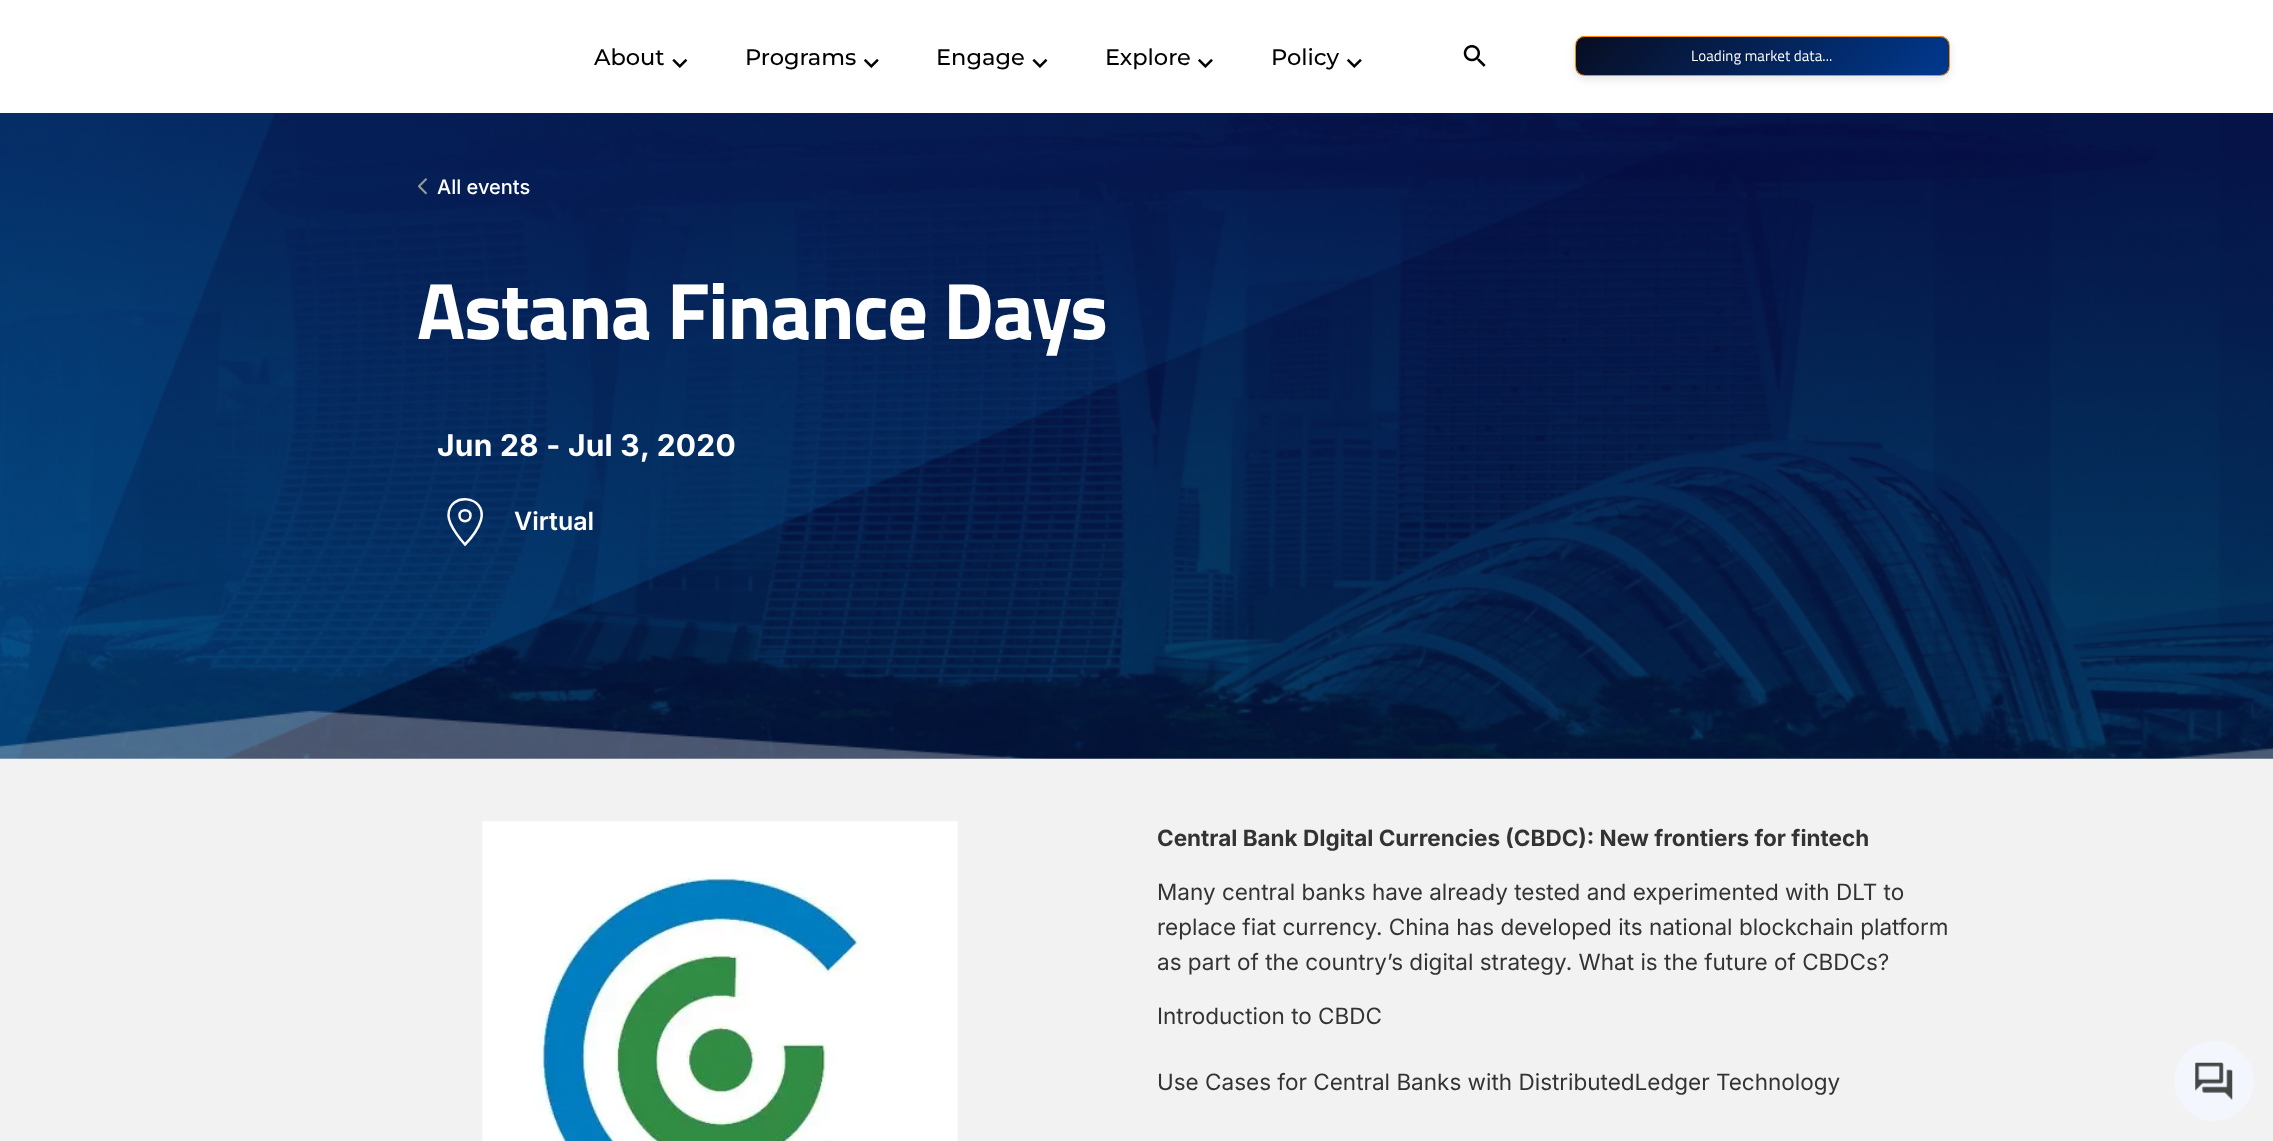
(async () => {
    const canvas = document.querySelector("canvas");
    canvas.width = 2273;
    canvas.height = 1141;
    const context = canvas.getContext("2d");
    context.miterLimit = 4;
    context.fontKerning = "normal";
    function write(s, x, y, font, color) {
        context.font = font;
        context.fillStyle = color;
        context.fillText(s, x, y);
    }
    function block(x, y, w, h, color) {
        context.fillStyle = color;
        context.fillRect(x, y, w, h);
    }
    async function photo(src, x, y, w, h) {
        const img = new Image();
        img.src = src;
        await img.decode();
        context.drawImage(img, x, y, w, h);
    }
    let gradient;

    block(0, 0, 2273, 1141, "rgb(255, 255, 255)");
    write("About", 594, 65, "500 22.5px Montserrat", "rgb(0, 0, 0)");
    await photo("media/1.png", 672, 58, 16, 10);
    write("Programs", 745, 65, "500 22.5px Montserrat", "rgb(0, 0, 0)");
    await photo("media/2.png", 863, 58, 16, 10);
    write("Engage", 936, 65, "500 22.5px Montserrat", "rgb(0, 0, 0)");
    await photo("media/3.png", 1032, 58, 16, 10);
    write("Explore", 1105, 65, "500 22.5px Montserrat", "rgb(0, 0, 0)");
    await photo("media/4.png", 1198, 58, 15, 10);
    write("Policy", 1271, 65, "500 22.5px Montserrat", "rgb(0, 0, 0)");
    await photo("media/5.png", 1346, 58, 16, 10);
    await photo("media/6.png", 1463, 45, 23, 22);
    context.fillStyle = "rgba(0, 0, 0, 0.1)";
    context.filter = "blur(5px)";
    context.beginPath();
    context.roundRect(1575, 39, 375, 40, 10);
    context.fill();
    context.filter = "none";
    context.save();
    context.beginPath();
    context.roundRect(1575, 36, 375, 40, 10);
    context.clip();
    gradient = context.createLinearGradient(1660, -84, 1865, 121);
    gradient.addColorStop(0, "rgb(8, 13, 34)");
    gradient.addColorStop(1, "rgb(0, 57, 143)");
    context.fillStyle = gradient;
    context.fillRect(1576, 36, 373, 2);
    gradient = context.createLinearGradient(1660, -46, 1865, 159);
    gradient.addColorStop(0, "rgb(8, 13, 34)");
    gradient.addColorStop(1, "rgb(0, 57, 143)");
    context.fillStyle = gradient;
    context.fillRect(1576, 38, 373, 37);
    context.restore();
    context.beginPath();
    context.roundRect(1575.5, 36.5, 374, 39, 9.5);
    context.strokeStyle = "rgb(255, 140, 0)";
    context.stroke();
    context.letterSpacing = "0.1px";
    write("Loading market data...", 1691, 61, "15px Titillium Web", "rgb(255, 255, 255)");
    await photo("media/7.png", 0, 113, 2273, 646);
    await photo("media/8.png", 418, 178, 10, 17);
    context.letterSpacing = "0px";
    write("All events", 437, 194, "500 20px Inter", "rgb(255, 255, 255)");
    context.letterSpacing = "-1.25px";
    write("Astana Finance Days", 417, 339, "bold 80px Titillium Web", "rgb(255, 255, 255)");
    context.letterSpacing = "0.25px";
    write("Jun 28 - Jul 3", 437, 456, "bold 30px Inter", "rgb(255, 255, 255)");
    write(", 2020", 640, 456, "bold 30px Inter", "rgb(255, 255, 255)");
    context.beginPath();
    context.moveTo(448.5, 515.5);
    context.bezierCurveTo(448.5, 526.5, 465, 544.5, 465, 544.5);
    context.bezierCurveTo(471.5, 538, 478, 529.5, 481, 520);
    context.bezierCurveTo(487.5, 495.5, 448.5, 491, 448.5, 515.5);
    context.closePath();
    context.moveTo(459.5, 515.5);
    context.bezierCurveTo(459.5, 523, 470.5, 523, 470.5, 515.5);
    context.bezierCurveTo(470.5, 508.5, 459.5, 508.5, 459.5, 515.5);
    context.closePath();
    context.strokeStyle = "rgb(252, 252, 252)";
    context.lineWidth = 2.5;
    context.stroke();
    context.letterSpacing = "0px";
    write("Virtual", 514, 530, "600 25px Inter", "rgb(255, 255, 255)");
    block(0, 759, 2273, 382, "rgb(242, 242, 242)");
    await photo("media/9.png", 482, 821, 476, 320);
    write("Central Bank DIgital Currencies (CBDC): New frontiers for fintech", 1157, 846, "bold 22.5px Inter", "rgb(51, 51, 51)");
    write("Many central banks have already tested and experimented with DLT to", 1157, 900, "22.5px Inter", "rgb(51, 51, 51)");
    write("replace fiat currency. China has developed its national blockchain platform", 1157, 935, "22.5px Inter", "rgb(51, 51, 51)");
    write("as part of the country’s digital strategy. What is the future of CBDCs?", 1157, 970, "22.5px Inter", "rgb(51, 51, 51)");
    write("Introduction to CBDC", 1157, 1024, "22.5px Inter", "rgb(51, 51, 51)");
    write("Use Cases for Central Banks with DistributedLedger Technology", 1157, 1090, "22.5px Inter", "rgb(51, 51, 51)");
    context.fillStyle = "rgb(243, 246, 252)";
    context.beginPath();
    context.arc(2214, 1081, 40, 0, Math.PI * 2);
    context.fill();
    await photo("media/10.png", 2195, 1062, 38, 38);
})();
